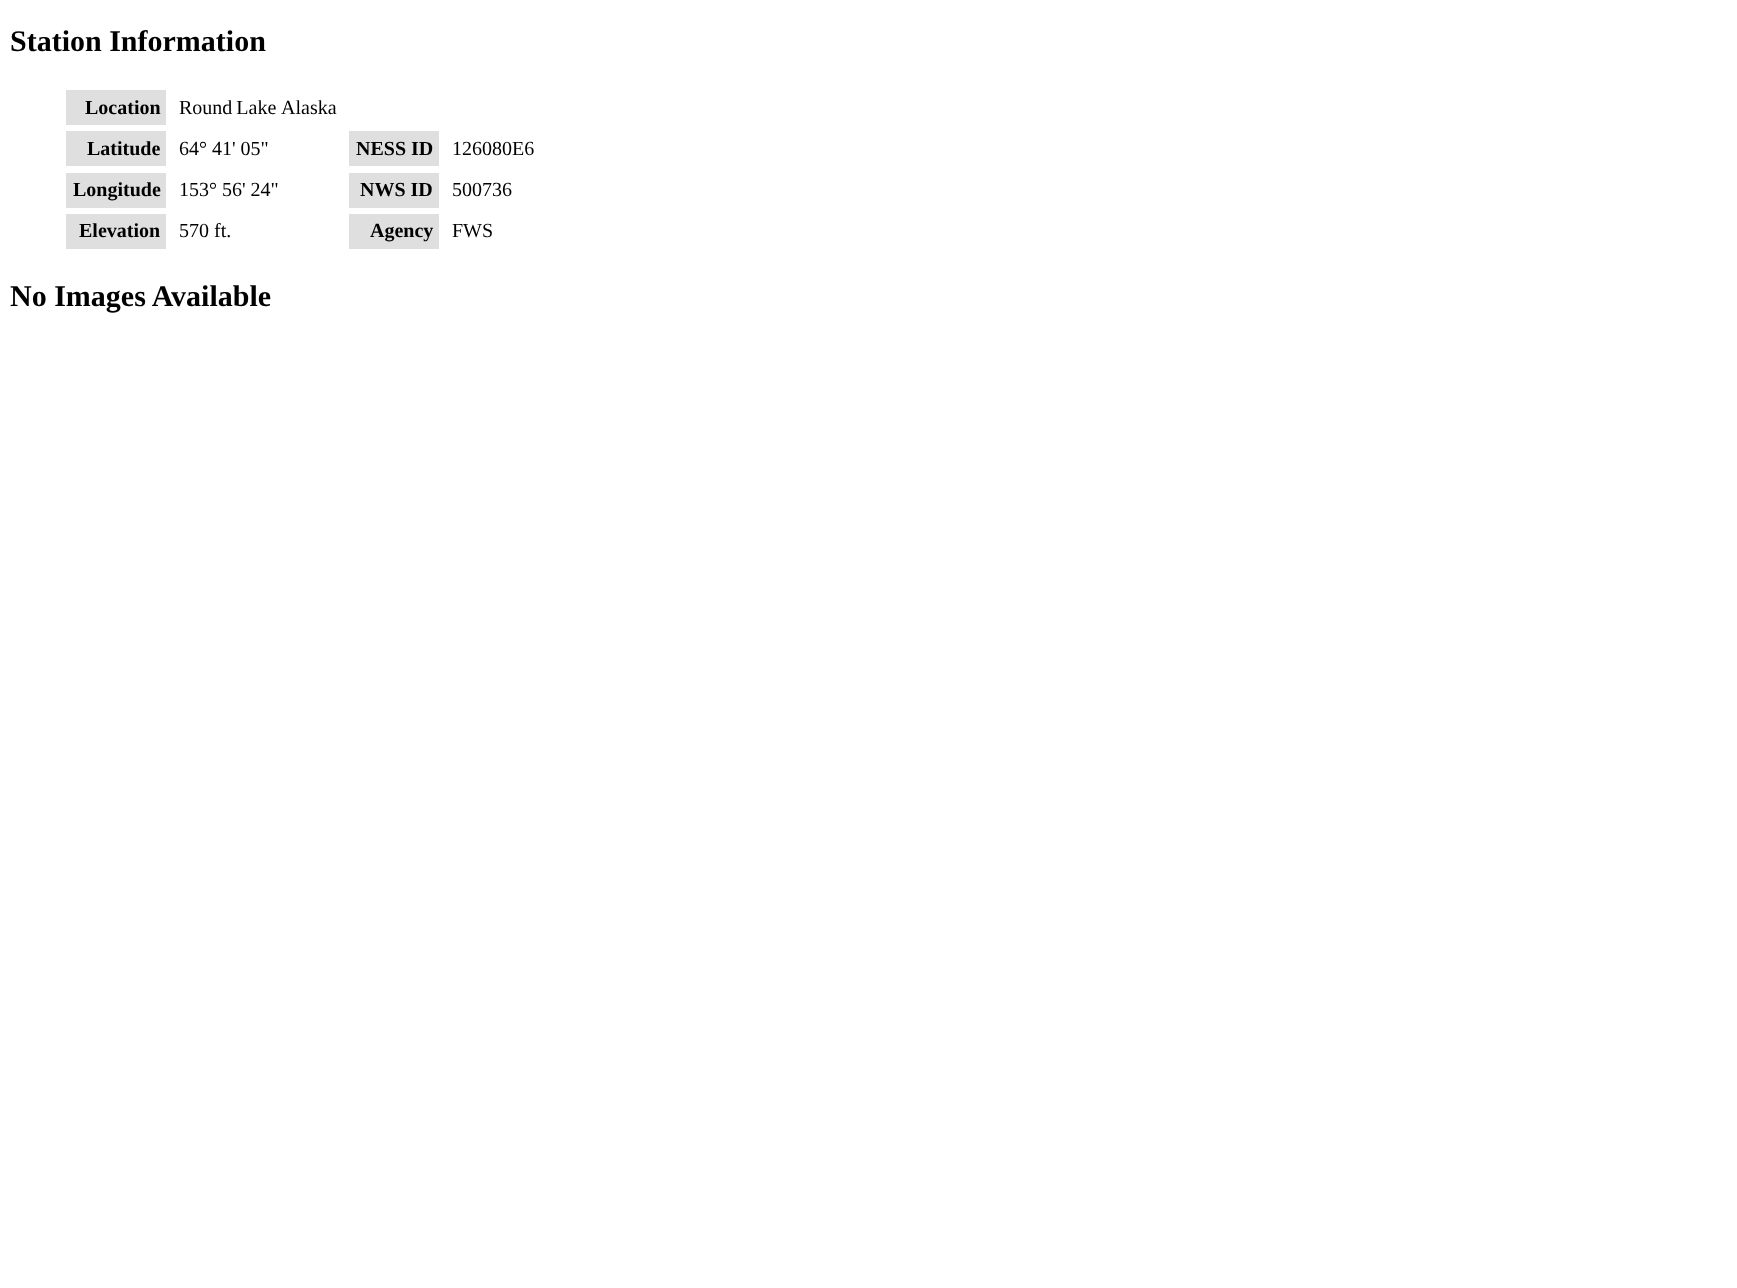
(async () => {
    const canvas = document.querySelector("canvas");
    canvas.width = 1737;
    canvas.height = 1288;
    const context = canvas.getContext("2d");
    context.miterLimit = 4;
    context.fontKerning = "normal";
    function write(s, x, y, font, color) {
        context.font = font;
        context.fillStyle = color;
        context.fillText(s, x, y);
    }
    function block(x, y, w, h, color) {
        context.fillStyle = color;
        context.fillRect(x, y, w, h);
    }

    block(0, 0, 1737, 1288, "rgb(255, 255, 255)");
    write("Station Information", 10, 51, "bold 30px Liberation Serif", "rgb(0, 0, 0)");
    block(66, 90, 100, 35, "rgb(223, 223, 223)");
    write("Location", 85, 114, "bold 20px Liberation Serif", "rgb(0, 0, 0)");
    context.wordSpacing = "-1px";
    write("Round Lake", 179, 114, "20px Liberation Serif", "rgb(0, 0, 0)");
    context.wordSpacing = "0px";
    write("Alaska", 281, 114, "20px Liberation Serif", "rgb(0, 0, 0)");
    block(66, 131, 100, 35, "rgb(223, 223, 223)");
    write("Latitude", 87, 155, "bold 20px Liberation Serif", "rgb(0, 0, 0)");
    write("64° 41' 05\"", 179, 155, "20px Liberation Serif", "rgb(0, 0, 0)");
    block(349, 131, 90, 35, "rgb(223, 223, 223)");
    write("NESS ID", 356, 155, "bold 20px Liberation Serif", "rgb(0, 0, 0)");
    write("126080E6", 452, 155, "20px Liberation Serif", "rgb(0, 0, 0)");
    block(66, 173, 100, 35, "rgb(223, 223, 223)");
    write("Longitude", 73, 196, "bold 20px Liberation Serif", "rgb(0, 0, 0)");
    write("153° 56' 24\"", 179, 196, "20px Liberation Serif", "rgb(0, 0, 0)");
    block(349, 173, 90, 35, "rgb(223, 223, 223)");
    write("NWS ID", 360, 196, "bold 20px Liberation Serif", "rgb(0, 0, 0)");
    write("500736", 452, 196, "20px Liberation Serif", "rgb(0, 0, 0)");
    block(66, 214, 100, 35, "rgb(223, 223, 223)");
    write("Elevation", 79, 237, "bold 20px Liberation Serif", "rgb(0, 0, 0)");
    write("570 ft.", 179, 237, "20px Liberation Serif", "rgb(0, 0, 0)");
    block(349, 214, 90, 35, "rgb(223, 223, 223)");
    write("Agency", 370, 237, "bold 20px Liberation Serif", "rgb(0, 0, 0)");
    write("FWS", 452, 237, "20px Liberation Serif", "rgb(0, 0, 0)");
    write("No Images Available", 10, 306, "bold 30px Liberation Serif", "rgb(0, 0, 0)");
})();
